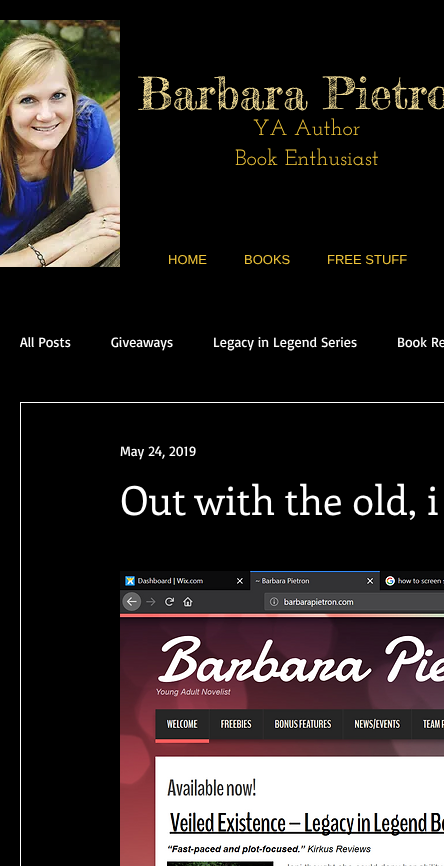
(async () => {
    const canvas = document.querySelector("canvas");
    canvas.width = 444;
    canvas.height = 866;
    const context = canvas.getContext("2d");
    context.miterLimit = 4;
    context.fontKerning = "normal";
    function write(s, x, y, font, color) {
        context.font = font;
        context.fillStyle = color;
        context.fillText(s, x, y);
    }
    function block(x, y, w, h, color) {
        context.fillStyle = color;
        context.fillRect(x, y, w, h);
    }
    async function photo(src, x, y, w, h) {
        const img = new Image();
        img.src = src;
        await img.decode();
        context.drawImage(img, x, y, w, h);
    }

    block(0, 0, 444, 866, "rgb(0, 0, 0)");
    await photo("media/1.png", 0, 20, 120, 247);
    write("Barbara Pietro", 138, 109, "44px Fredericka the Great", "rgb(246, 224, 152)");
    write("YA Author", 253, 135, "22px Josefin Slab", "rgb(242, 199, 58)");
    write("Book Enthusiast", 235, 165, "22px Josefin Slab", "rgb(242, 199, 58)");
    write("HOME", 168, 264, "13px Liberation Sans", "rgb(242, 199, 58)");
    write("BOOKS", 244, 264, "13px Liberation Sans", "rgb(242, 199, 58)");
    write("FREE STUFF", 327, 264, "13px Liberation Sans", "rgb(242, 199, 58)");
    write("All Posts", 20, 347, "14px Basic", "rgb(255, 255, 255)");
    write("Giveaways", 111, 347, "14px Basic", "rgb(255, 255, 255)");
    write("Legacy in Legend Series", 213, 347, "14px Basic", "rgb(255, 255, 255)");
    write("Book Re", 397, 347, "14px Basic", "rgb(255, 255, 255)");
    context.strokeStyle = "rgb(255, 255, 255)";
    context.strokeRect(20.5, 402.5, 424, 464);
    write("May 24, 2019", 120, 456, "14px Basic", "rgb(255, 255, 255)");
    write("Out with the old, i", 120, 515, "40px Enriqueta", "rgb(255, 255, 255)");
    await photo("media/2.png", 120, 571, 324, 295);
})();
